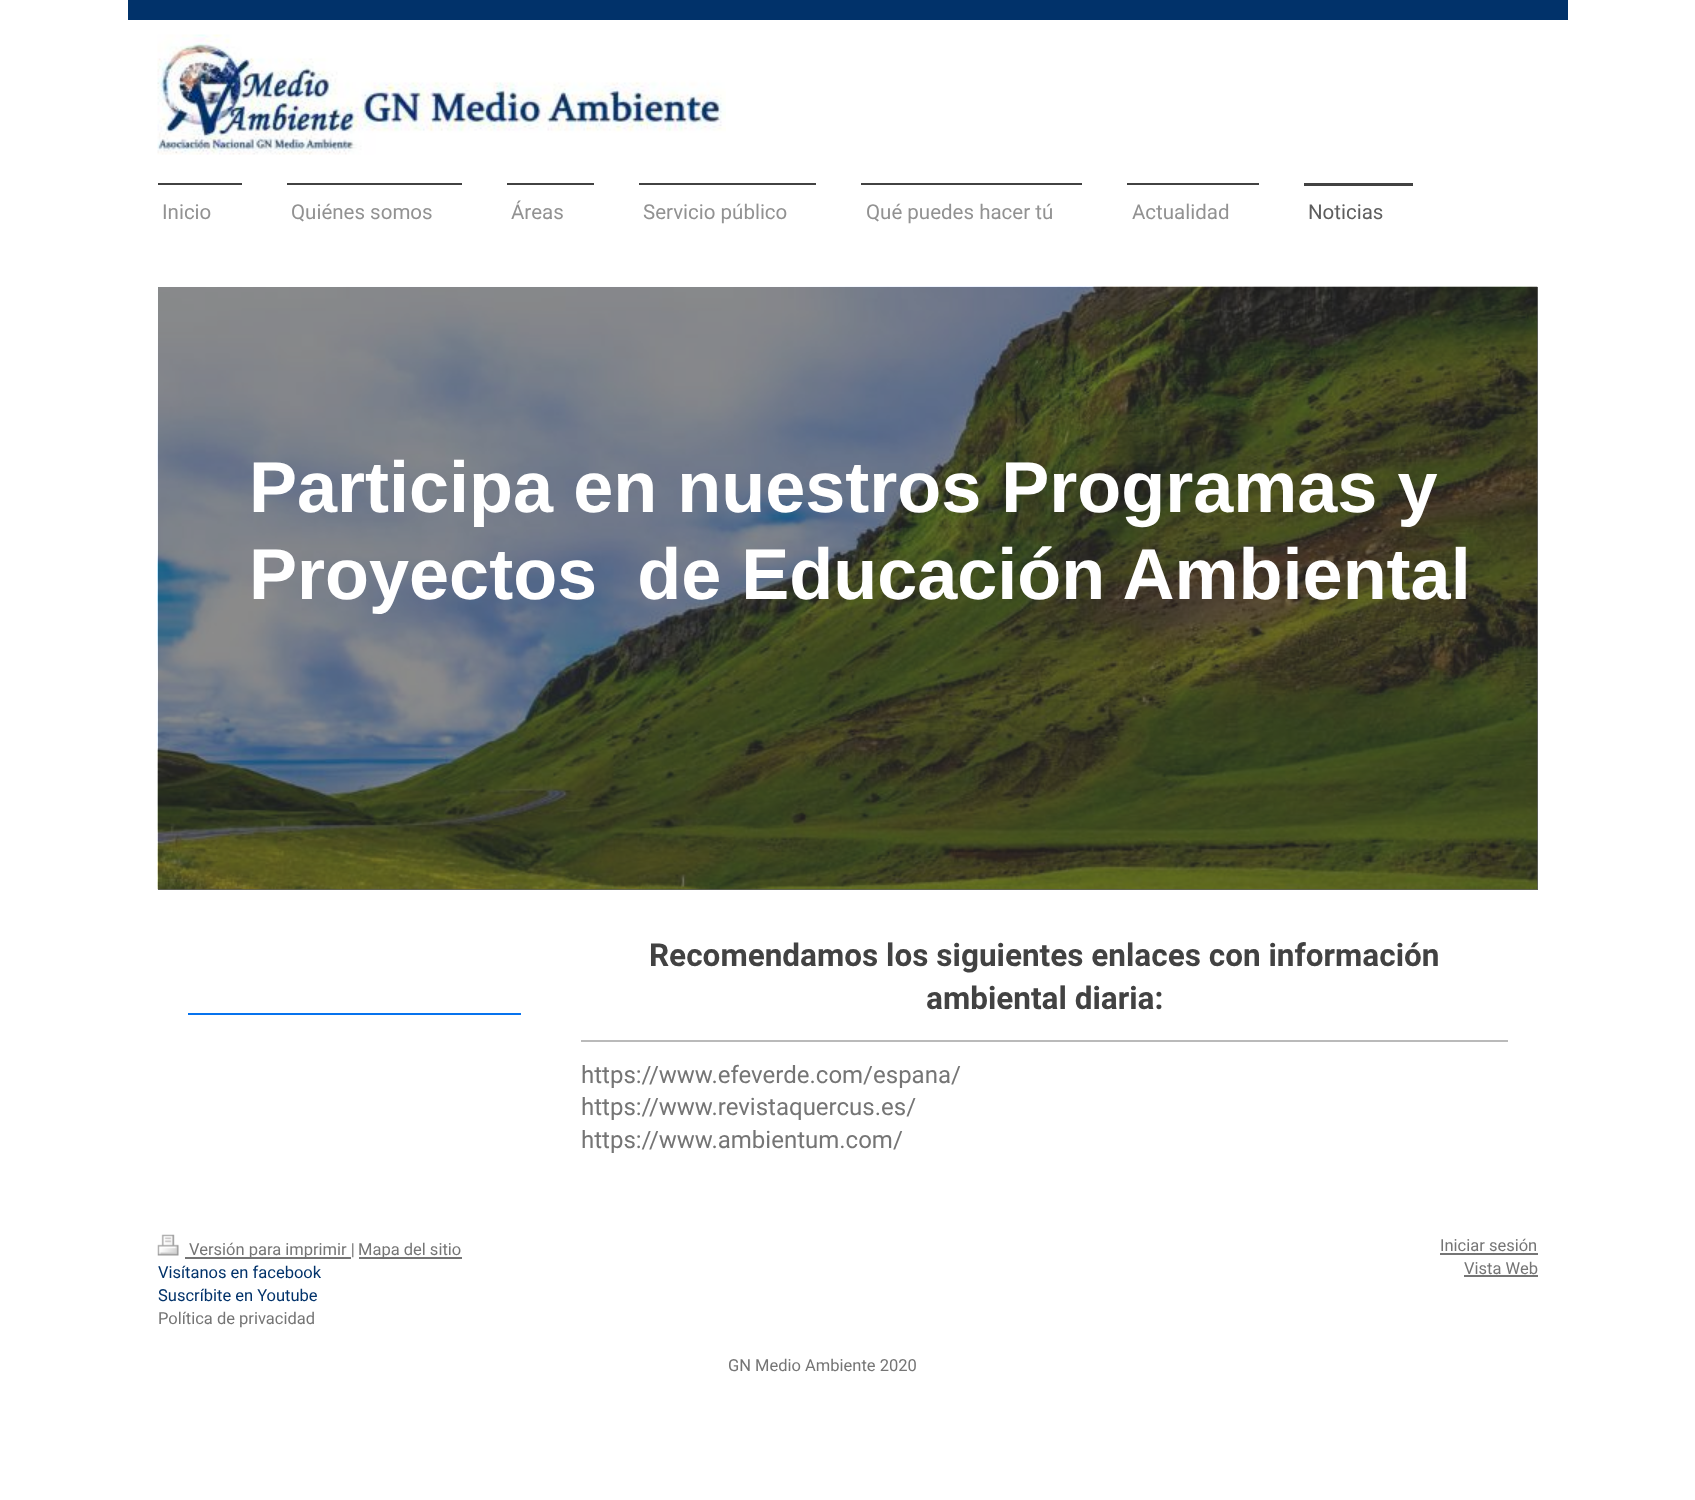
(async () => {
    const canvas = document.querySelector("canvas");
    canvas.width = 1695;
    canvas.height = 1500;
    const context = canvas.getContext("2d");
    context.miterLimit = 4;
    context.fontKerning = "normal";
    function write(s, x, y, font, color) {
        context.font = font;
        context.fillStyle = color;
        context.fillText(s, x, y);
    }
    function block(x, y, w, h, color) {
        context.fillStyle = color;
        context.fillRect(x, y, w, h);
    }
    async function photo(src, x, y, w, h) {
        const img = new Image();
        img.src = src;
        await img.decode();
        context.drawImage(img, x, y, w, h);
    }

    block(0, 0, 1695, 1500, "rgb(255, 255, 255)");
    block(128, 0, 1440, 20, "rgb(1, 50, 106)");
    await photo("media/1.png", 157, 34, 569, 121);
    block(158, 183, 84, 2, "rgb(66, 66, 66)");
    write("Inicio", 162, 219, "20.5px Roboto", "rgb(146, 146, 146)");
    block(287, 183, 175, 2, "rgb(66, 66, 66)");
    write("Quiénes somos", 291, 219, "20.5px Roboto", "rgb(146, 146, 146)");
    block(507, 183, 87, 2, "rgb(66, 66, 66)");
    write("Áreas", 511, 219, "20.5px Roboto", "rgb(146, 146, 146)");
    block(639, 183, 177, 2, "rgb(66, 66, 66)");
    write("Servicio público", 643, 219, "20.5px Roboto", "rgb(146, 146, 146)");
    block(861, 183, 221, 2, "rgb(66, 66, 66)");
    write("Qué puedes hacer tú", 866, 219, "20.5px Roboto", "rgb(146, 146, 146)");
    block(1127, 183, 132, 2, "rgb(66, 66, 66)");
    write("Actualidad", 1132, 219, "20.5px Roboto", "rgb(146, 146, 146)");
    block(1304, 183, 109, 3, "rgb(66, 66, 66)");
    write("Noticias", 1308, 219, "20.5px Roboto", "rgb(94, 94, 94)");
    block(158, 287, 1380, 603, "rgb(98, 98, 98)");
    await photo("media/2.png", 157, 286, 1381, 604);
    write("Participa en nuestros Programas y", 249, 512, "bold 72px Liberation Sans", "rgb(255, 255, 255)");
    write("Proyectos  de Educación Ambiental", 249, 599, "bold 72px Liberation Sans", "rgb(255, 255, 255)");
    block(188, 1013, 333, 2, "rgb(7, 115, 238)");
    write("Recomendamos los siguientes enlaces con información", 649, 966, "bold 31.5px Roboto", "rgb(66, 66, 66)");
    write("ambiental diaria:", 926, 1009, "bold 31.5px Roboto", "rgb(66, 66, 66)");
    block(581, 1040, 927, 2, "rgb(186, 186, 186)");
    write("https://www.efeverde.com/espana/", 581, 1083, "24px Roboto", "rgb(117, 117, 117)");
    write("https://www.revistaquercus.es/", 581, 1115, "24px Roboto", "rgb(117, 117, 117)");
    write("https://www.ambientum.com/", 581, 1148, "24px Roboto", "rgb(117, 117, 117)");
    await photo("media/3.png", 157, 1234, 22, 22);
    block(185, 1257, 166, 2, "rgb(117, 117, 117)");
    write("Versión para imprimir |", 189, 1255, "16.5px Roboto", "rgb(117, 117, 117)");
    block(359, 1257, 103, 2, "rgb(117, 117, 117)");
    write("Mapa del sitio", 358, 1255, "16.5px Roboto", "rgb(117, 117, 117)");
    write("Visítanos en facebook", 158, 1278, "16.5px Roboto", "rgb(1, 50, 106)");
    write("Suscríbite en Youtube", 158, 1301, "16.5px Roboto", "rgb(1, 50, 106)");
    write("Política de privacidad", 158, 1324, "16.5px Roboto", "rgb(117, 117, 117)");
    write("GN Medio Ambiente 2020", 728, 1371, "16.5px Roboto", "rgb(117, 117, 117)");
    write("Iniciar sesión", 1440, 1251, "16.5px Roboto", "rgb(117, 117, 117)");
    block(1440, 1253, 98, 2, "rgb(117, 117, 117)");
    write("Vista Web", 1464, 1274, "16.5px Roboto", "rgb(117, 117, 117)");
    block(1464, 1275, 74, 2, "rgb(117, 117, 117)");
})();
